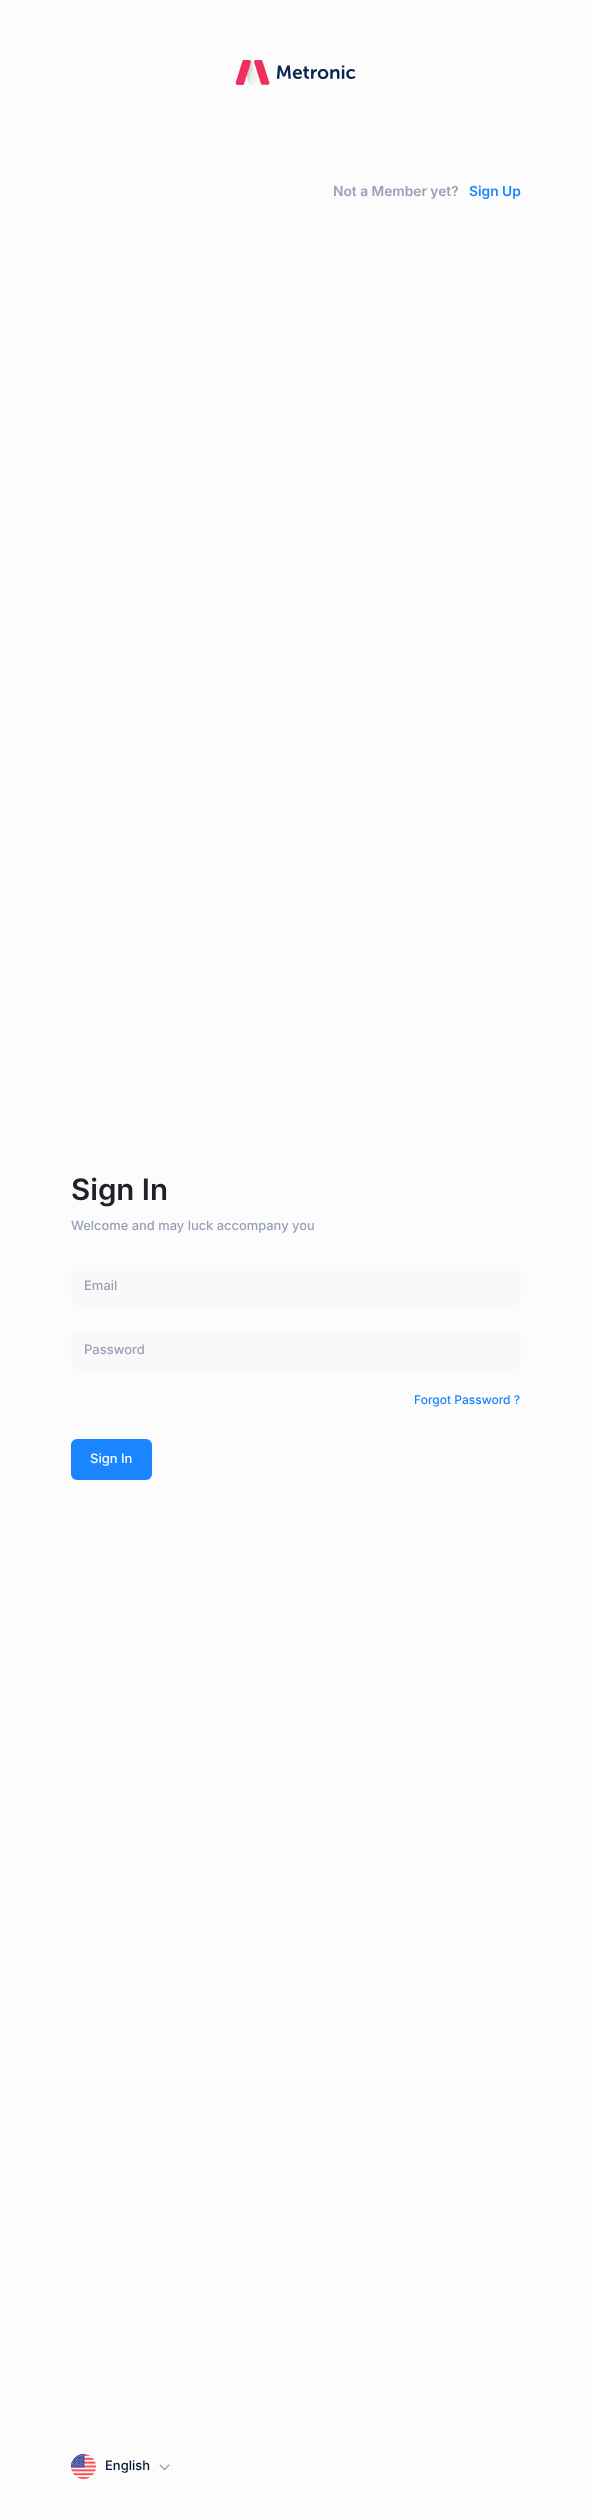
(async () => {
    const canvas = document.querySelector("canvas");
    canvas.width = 591;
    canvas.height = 2519;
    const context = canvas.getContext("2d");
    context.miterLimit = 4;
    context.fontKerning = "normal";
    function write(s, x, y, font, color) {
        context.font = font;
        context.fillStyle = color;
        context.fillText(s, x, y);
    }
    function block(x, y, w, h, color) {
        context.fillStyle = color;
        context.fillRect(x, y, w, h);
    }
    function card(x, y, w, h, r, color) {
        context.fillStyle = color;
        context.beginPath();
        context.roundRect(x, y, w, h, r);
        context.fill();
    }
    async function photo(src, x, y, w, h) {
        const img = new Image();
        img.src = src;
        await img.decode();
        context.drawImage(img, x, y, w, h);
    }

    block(0, 0, 591, 2519, "rgb(252, 252, 252)");
    await photo("media/1.png", 235, 60, 121, 25);
    write("Not a Member yet?", 333, 196, "600 13.75px Inter", "rgb(153, 161, 183)");
    write("Sign Up", 469, 196, "600 13.75px Inter", "rgb(27, 132, 255)");
    write("Sign In", 71, 1200, "600 29.5px Inter", "rgb(30, 33, 41)");
    write("Welcome and may luck accompany you", 71, 1230, "500 12.9px Inter", "rgb(153, 161, 183)");
    context.fillStyle = "rgb(249, 249, 249)";
    context.beginPath();
    context.roundRect(71.5, 1265.5, 449, 40, 5.5);
    context.fill();
    context.strokeStyle = "rgb(249, 249, 249)";
    context.stroke();
    write("Email", 84, 1290, "500 13px Inter", "rgb(153, 161, 183)");
    context.fillStyle = "rgb(249, 249, 249)";
    context.beginPath();
    context.roundRect(71.5, 1330.5, 449, 39, 5.5);
    context.fill();
    context.stroke();
    write("Password", 84, 1354, "500 13px Inter", "rgb(153, 161, 183)");
    write("Forgot Password ?", 414, 1404, "500 12px Inter", "rgb(27, 132, 255)");
    card(71, 1439, 81, 41, 6, "rgb(27, 132, 255)");
    write("Sign In", 90, 1463, "500 13px Inter", "rgb(255, 255, 255)");
    await photo("media/2.png", 71, 2454, 25, 25);
    write("English", 105, 2470, "500 13px Inter", "rgb(7, 20, 55)");
    await photo("media/3.png", 159, 2464, 11, 7);
})();
